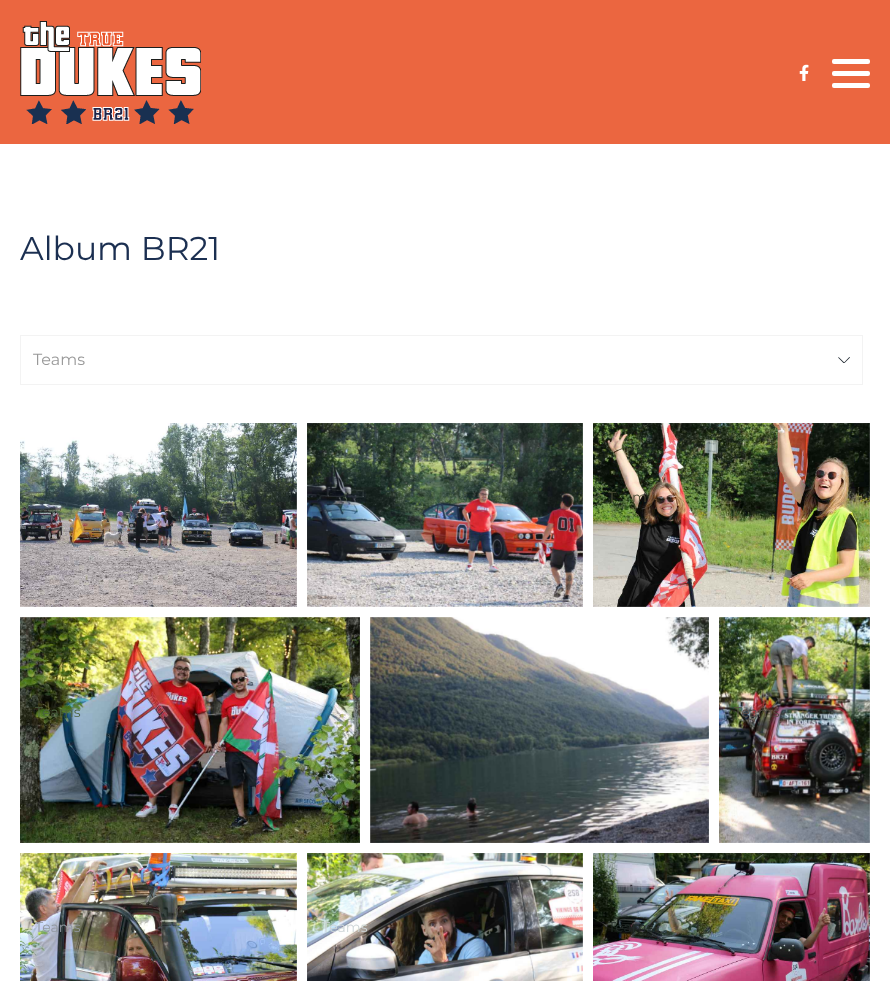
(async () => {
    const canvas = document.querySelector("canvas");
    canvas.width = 890;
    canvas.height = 981;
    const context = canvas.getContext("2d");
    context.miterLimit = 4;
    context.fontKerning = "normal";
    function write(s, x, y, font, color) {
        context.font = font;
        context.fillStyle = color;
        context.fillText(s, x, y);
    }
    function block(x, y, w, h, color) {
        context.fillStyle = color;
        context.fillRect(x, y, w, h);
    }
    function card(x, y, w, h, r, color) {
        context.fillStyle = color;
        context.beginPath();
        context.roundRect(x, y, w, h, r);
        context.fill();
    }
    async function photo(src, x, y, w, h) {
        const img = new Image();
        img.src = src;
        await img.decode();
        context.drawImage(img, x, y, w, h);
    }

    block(0, 0, 890, 981, "rgb(255, 255, 255)");
    block(0, 0, 890, 144, "rgb(235, 102, 64)");
    await photo("media/1.png", 20, 21, 181, 103);
    await photo("media/2.png", 799, 64, 10, 17);
    card(832, 71, 38, 5, 2, "rgb(255, 255, 255)");
    card(832, 59, 38, 5, 2, "rgb(255, 255, 255)");
    card(832, 83, 38, 5, 2, "rgb(255, 255, 255)");
    write("Album BR21", 20, 260, "33px Montserrat", "rgb(27, 47, 81)");
    await photo("media/3.png", 838, 357, 12, 6);
    context.strokeStyle = "rgb(243, 243, 243)";
    context.strokeRect(20.5, 335.5, 842, 49);
    write("Teams", 33, 365, "16px Montserrat", "rgb(153, 153, 153)");
    await photo("media/4.png", 20, 423, 277, 184);
    await photo("media/5.png", 307, 423, 276, 184);
    await photo("media/6.png", 593, 423, 277, 184);
    write("T", 608, 502, "14px Montserrat", "rgb(81, 82, 58)");
    write("m", 632, 502, "14px Montserrat", "rgb(81, 82, 58)");
    await photo("media/7.png", 20, 617, 340, 226);
    write("Teams", 35, 717, "14px Montserrat", "rgb(77, 100, 66)");
    await photo("media/8.png", 370, 617, 339, 226);
    await photo("media/9.png", 719, 617, 151, 226);
    write("Teams", 734, 717, "14px Montserrat", "rgb(92, 80, 74)");
    await photo("media/10.png", 20, 853, 277, 128);
    write("Teams", 35, 932, "14px Montserrat", "rgb(147, 153, 161)");
    await photo("media/11.png", 307, 853, 276, 128);
    write("Teams", 322, 932, "14px Montserrat", "rgb(206, 214, 216)");
    await photo("media/12.png", 593, 853, 277, 128);
    write("Teams", 608, 932, "14px Montserrat", "rgb(35, 43, 40)");
})();
